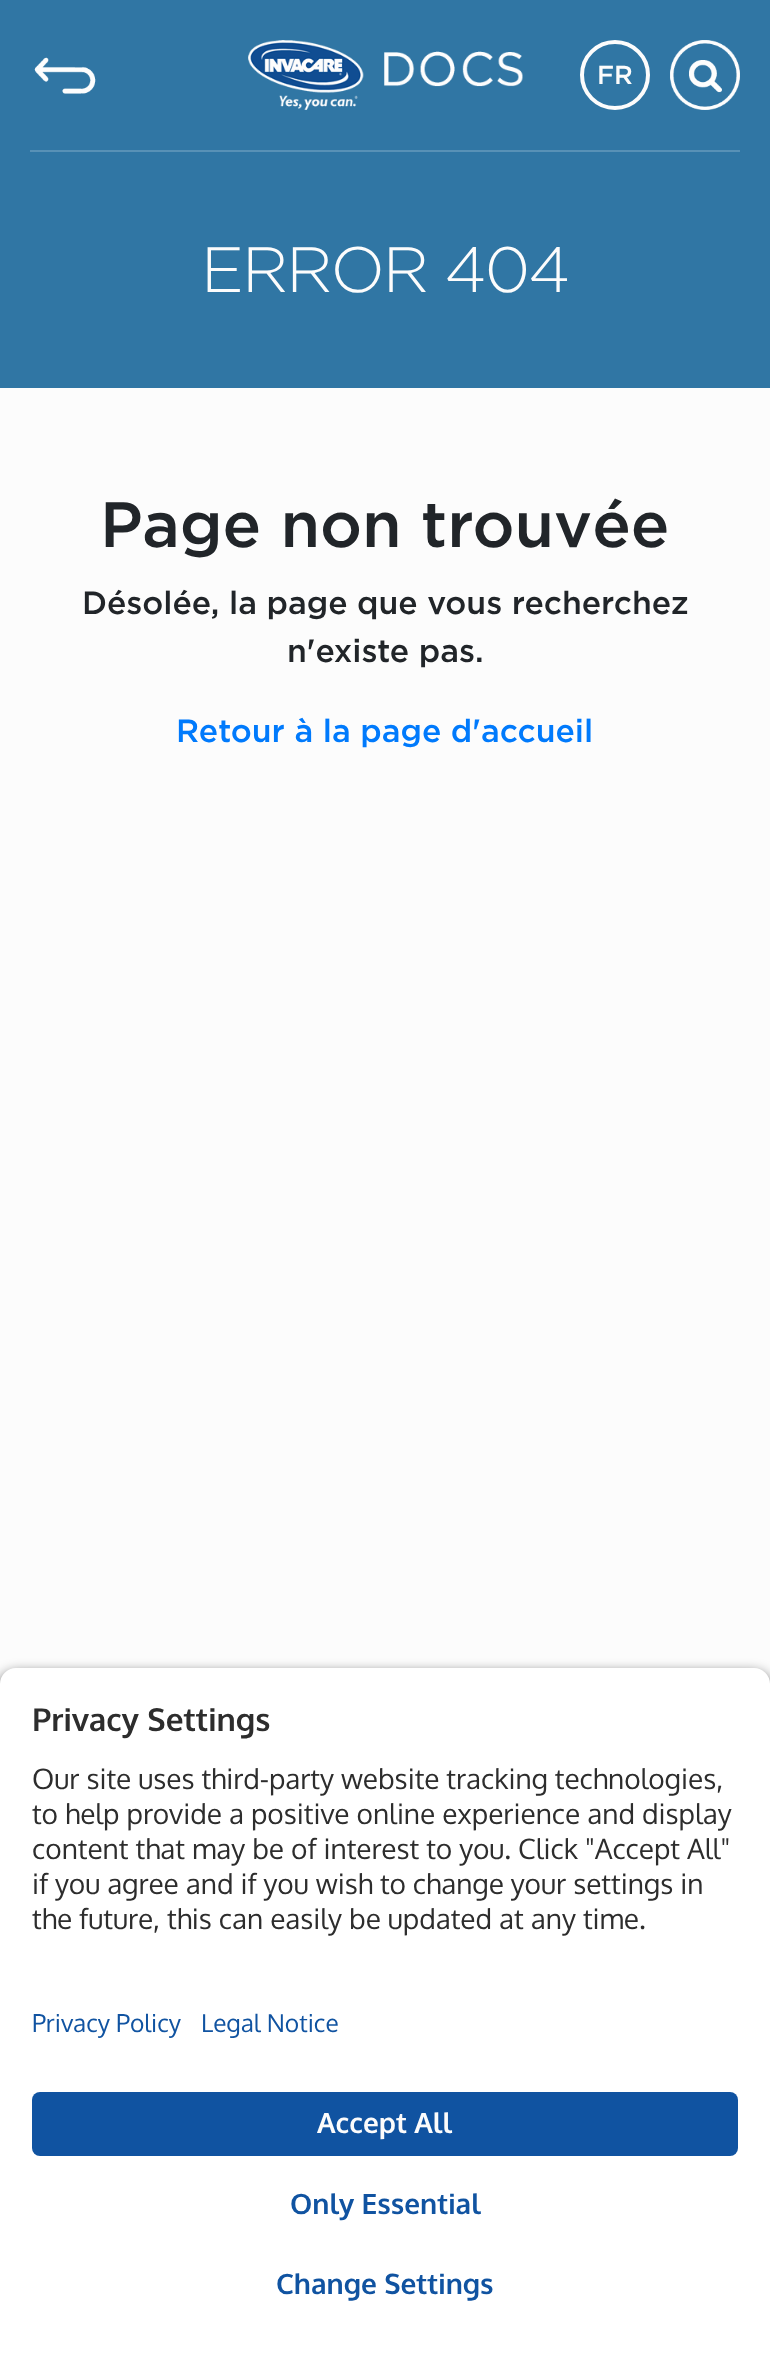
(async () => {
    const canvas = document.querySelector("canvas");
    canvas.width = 770;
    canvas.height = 2371;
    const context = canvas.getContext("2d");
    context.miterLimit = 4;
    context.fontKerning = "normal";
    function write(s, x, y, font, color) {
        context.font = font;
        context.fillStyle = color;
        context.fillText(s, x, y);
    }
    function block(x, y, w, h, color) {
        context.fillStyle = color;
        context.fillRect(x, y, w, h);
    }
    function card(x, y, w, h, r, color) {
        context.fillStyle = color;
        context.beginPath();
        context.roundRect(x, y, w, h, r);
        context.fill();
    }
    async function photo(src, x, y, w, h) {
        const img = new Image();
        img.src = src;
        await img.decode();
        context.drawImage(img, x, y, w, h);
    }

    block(0, 0, 770, 2371, "rgb(252, 252, 252)");
    block(0, 0, 770, 388, "rgb(48, 118, 164)");
    await photo("media/1.png", 34, 57, 62, 37);
    await photo("media/2.png", 248, 40, 275, 70);
    context.beginPath();
    context.arc(615, 75, 33, 0, Math.PI * 2);
    context.strokeStyle = "rgb(252, 252, 252)";
    context.lineWidth = 4;
    context.stroke();
    write("FR", 597, 84, "500 26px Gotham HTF", "rgb(252, 252, 252)");
    await photo("media/3.png", 670, 40, 70, 70);
    block(30, 150, 710, 2, "rgb(88, 145, 182)");
    context.letterSpacing = "-2px";
    write("ERROR 404", 201, 292, "300 64px Gotham HTF", "rgb(252, 252, 252)");
    context.letterSpacing = "0px";
    write("Page non trouvée", 100, 547, "500 64px Gotham HTF", "rgb(33, 37, 41)");
    write("Désolée, la page que vous recherchez", 82, 614, "500 32px Gotham HTF", "rgb(33, 37, 41)");
    write("n'existe pas.", 287, 662, "500 32px Gotham HTF", "rgb(33, 37, 41)");
    write("Retour à la page d'accueil", 176, 742, "500 32px Gotham HTF", "rgb(0, 122, 252)");
    context.fillStyle = "rgba(0, 0, 0, 0.8)";
    context.filter = "blur(7px)";
    context.beginPath();
    context.roundRect(0, 1674, 770, 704, 16);
    context.fill();
    context.filter = "none";
    context.fillStyle = "rgb(255, 255, 255)";
    context.beginPath();
    context.roundRect(0, 1668, 770, 308, [16, 16, 0, 0]);
    context.fill();
    write("Privacy Settings", 32, 1731, "bold 31.5px Oxygen", "rgb(45, 45, 45)");
    write("Our site uses third-party website tracking technologies,", 32, 1789, "28px Oxygen", "rgb(45, 45, 45)");
    write("to help provide a positive online experience and display", 32, 1824, "28px Oxygen", "rgb(45, 45, 45)");
    write("content that may be of interest to you. Click \"Accept All\"", 32, 1859, "28px Oxygen", "rgb(45, 45, 45)");
    write("if you agree and if you wish to change your settings in", 32, 1894, "28px Oxygen", "rgb(45, 45, 45)");
    write("the future, this can easily be updated at any time.", 32, 1929, "28px Oxygen", "rgb(45, 45, 45)");
    block(0, 1976, 770, 395, "rgb(255, 255, 255)");
    write("Privacy Policy", 32, 2032, "24.5px Oxygen", "rgb(16, 83, 161)");
    write("Legal Notice", 201, 2032, "24.5px Oxygen", "rgb(16, 83, 161)");
    card(32, 2092, 706, 64, 8, "rgb(16, 83, 161)");
    write("Accept All", 317, 2133, "bold 28px Oxygen", "rgb(252, 252, 252)");
    write("Only Essential", 290, 2214, "bold 28px Oxygen", "rgb(16, 83, 161)");
    write("Change Settings", 276, 2294, "bold 28px Oxygen", "rgb(16, 83, 161)");
})();
